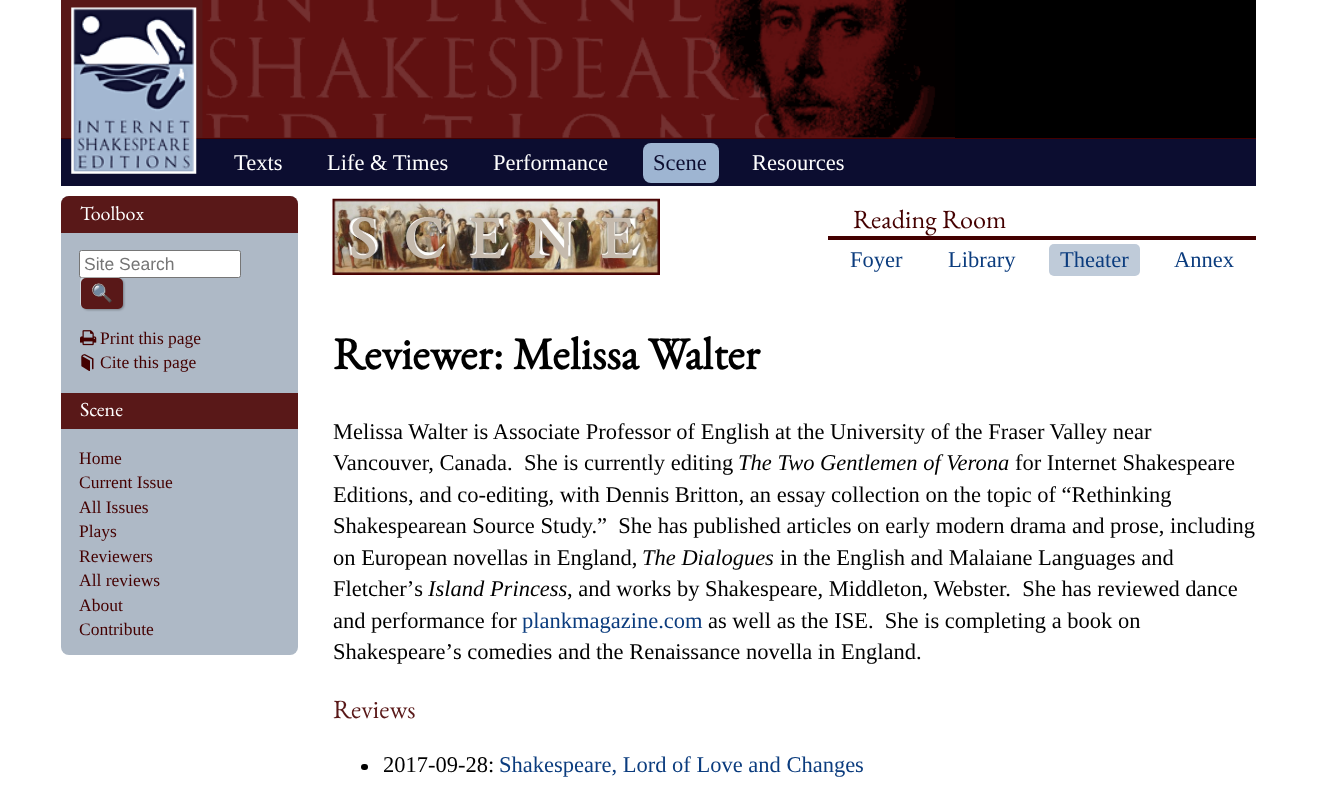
(async () => {
    const canvas = document.querySelector("canvas");
    canvas.width = 1317;
    canvas.height = 792;
    const context = canvas.getContext("2d");
    context.miterLimit = 4;
    context.fontKerning = "normal";
    function write(s, x, y, font, color) {
        context.font = font;
        context.fillStyle = color;
        context.fillText(s, x, y);
    }
    function block(x, y, w, h, color) {
        context.fillStyle = color;
        context.fillRect(x, y, w, h);
    }
    function card(x, y, w, h, r, color) {
        context.fillStyle = color;
        context.beginPath();
        context.roundRect(x, y, w, h, r);
        context.fill();
    }
    async function photo(src, x, y, w, h) {
        const img = new Image();
        img.src = src;
        await img.decode();
        context.drawImage(img, x, y, w, h);
    }

    block(0, 0, 1317, 792, "rgb(255, 255, 255)");
    block(955, 0, 301, 138, "rgb(0, 0, 0)");
    block(61, 0, 894, 138, "rgb(89, 24, 24)");
    await photo("media/1.png", 202, 0, 753, 138);
    block(61, 139, 1195, 47, "rgb(12, 13, 48)");
    block(61, 138, 1195, 1, "rgb(68, 0, 0)");
    await photo("media/2.png", 71, 7, 126, 167);
    write("Texts", 234, 170, "22.5px Liberation Serif", "rgb(255, 255, 255)");
    write("Life & Times", 327, 170, "22.5px Liberation Serif", "rgb(255, 255, 255)");
    write("Performance", 493, 170, "22.5px Liberation Serif", "rgb(255, 255, 255)");
    card(643, 143, 76, 40, 8, "rgb(158, 181, 210)");
    write("Scene", 653, 170, "22.5px Liberation Serif", "rgb(12, 13, 48)");
    write("Resources", 752, 170, "22.5px Liberation Serif", "rgb(255, 255, 255)");
    card(61, 196, 237, 459, 8, "rgb(174, 185, 198)");
    context.fillStyle = "rgb(89, 24, 24)";
    context.beginPath();
    context.roundRect(61, 196, 237, 37, [8, 8, 0, 0]);
    context.fill();
    write("Toolbox", 80, 220, "20px EB Garamond", "rgb(255, 255, 255)");
    context.beginPath();
    context.roundRect(79.5, 250.5, 161, 27, 2);
    context.fill();
    context.strokeStyle = "rgb(118, 118, 118)";
    context.stroke();
    write("Site Search", 84, 270, "17.5px Liberation Sans", "rgb(117, 117, 117)");
    context.fillStyle = "rgba(0, 0, 0, 0.3)";
    context.filter = "blur(1px)";
    context.beginPath();
    context.roundRect(83, 279, 41, 31, 5);
    context.fill();
    context.filter = "none";
    context.fillStyle = "rgba(255, 255, 255, 0.4)";
    context.filter = "blur(0.5px)";
    context.beginPath();
    context.roundRect(80, 276, 41, 32, 5);
    context.fill();
    context.filter = "none";
    context.fillStyle = "rgb(89, 24, 24)";
    context.beginPath();
    context.roundRect(82.5, 279.5, 39, 28, 3.5);
    context.fill();
    context.strokeStyle = "rgb(89, 24, 24)";
    context.lineWidth = 3;
    context.stroke();
    write("🔍", 91, 299, "17.5px Noto Color Emoji", "rgb(255, 255, 255)");
    await photo("media/3.png", 80, 330, 17, 16);
    write("Print this page", 100, 344, "17.5px Liberation Serif", "rgb(68, 0, 0)");
    await photo("media/4.png", 81, 354, 13, 17);
    write("Cite this page", 100, 368, "17.5px Liberation Serif", "rgb(68, 0, 0)");
    block(61, 393, 237, 36, "rgb(89, 24, 24)");
    write("Scene", 80, 416, "20px EB Garamond", "rgb(255, 255, 255)");
    write("Home", 79, 464, "17.5px Liberation Serif", "rgb(68, 0, 0)");
    write("Current Issue", 79, 488, "17.5px Liberation Serif", "rgb(68, 0, 0)");
    write("All Issues", 79, 513, "17.5px Liberation Serif", "rgb(68, 0, 0)");
    write("Plays", 79, 537, "17.5px Liberation Serif", "rgb(68, 0, 0)");
    write("Reviewers", 79, 562, "17.5px Liberation Serif", "rgb(68, 0, 0)");
    write("All reviews", 79, 586, "17.5px Liberation Serif", "rgb(68, 0, 0)");
    write("About", 79, 611, "17.5px Liberation Serif", "rgb(68, 0, 0)");
    write("Contribute", 79, 635, "17.5px Liberation Serif", "rgb(68, 0, 0)");
    block(828, 236, 428, 4, "rgb(68, 0, 0)");
    write("Reading Room", 853, 228, "26.25px EB Garamond", "rgb(68, 0, 0)");
    write("Foyer", 850, 267, "22.5px Liberation Serif", "rgb(11, 60, 126)");
    write("Library", 948, 267, "22.5px Liberation Serif", "rgb(11, 60, 126)");
    card(1049, 244, 91, 32, 5, "rgb(191, 203, 217)");
    write("Theater", 1060, 267, "22.5px Liberation Serif", "rgb(11, 60, 126)");
    write("Annex", 1174, 267, "22.5px Liberation Serif", "rgb(11, 60, 126)");
    await photo("media/5.png", 332, 198, 328, 77);
    context.letterSpacing = "27.5px";
    write("SCENE", 349, 258, "bold 58.75px EB Garamond", "rgb(197, 186, 173)");
    context.letterSpacing = "0px";
    write("Reviewer: Melissa Walter", 333, 369, "bold 45px EB Garamond", "rgb(0, 0, 0)");
    write("Melissa Walter is Associate Professor of English at the University of the Fraser Valley near", 333, 439, "22.5px Liberation Serif", "rgb(0, 0, 0)");
    write("Vancouver, Canada.  She is currently editing", 333, 470, "22.5px Liberation Serif", "rgb(0, 0, 0)");
    write("The Two Gentlemen of Verona", 738, 470, "italic 22.5px Liberation Serif", "rgb(0, 0, 0)");
    write("for Internet Shakespeare", 1015, 470, "22.5px Liberation Serif", "rgb(0, 0, 0)");
    write("Editions, and co-editing, with Dennis Britton, an essay collection on the topic of “Rethinking", 333, 502, "22.5px Liberation Serif", "rgb(0, 0, 0)");
    write("Shakespearean Source Study.”  She has published articles on early modern drama and prose, including", 333, 533, "22.5px Liberation Serif", "rgb(0, 0, 0)");
    write("on European novellas in England,", 333, 565, "22.5px Liberation Serif", "rgb(0, 0, 0)");
    write("The Dialogues", 642, 565, "italic 22.5px Liberation Serif", "rgb(0, 0, 0)");
    write("in the English and Malaiane Languages and", 780, 565, "22.5px Liberation Serif", "rgb(0, 0, 0)");
    write("Fletcherʼs", 333, 596, "22.5px Liberation Serif", "rgb(0, 0, 0)");
    write("Island Princess", 428, 596, "italic 22.5px Liberation Serif", "rgb(0, 0, 0)");
    write(", and works by Shakespeare, Middleton, Webster.  She has reviewed dance", 567, 596, "22.5px Liberation Serif", "rgb(0, 0, 0)");
    write("and performance for", 333, 628, "22.5px Liberation Serif", "rgb(0, 0, 0)");
    write("plankmagazine.com", 522, 628, "22.5px Liberation Serif", "rgb(11, 60, 126)");
    write("as well as the ISE.  She is completing a book on", 708, 628, "22.5px Liberation Serif", "rgb(0, 0, 0)");
    write("Shakespeareʼs comedies and the Renaissance novella in England.", 333, 659, "22.5px Liberation Serif", "rgb(0, 0, 0)");
    write("Reviews", 333, 718, "26.25px EB Garamond", "rgb(89, 24, 24)");
    card(361, 764, 7, 6, 3, "rgb(0, 0, 0)");
    write("2017-09-28:", 383, 772, "22.5px Liberation Serif", "rgb(0, 0, 0)");
    write("Shakespeare, Lord of Love and Changes", 499, 772, "22.5px Liberation Serif", "rgb(11, 60, 126)");
})();
